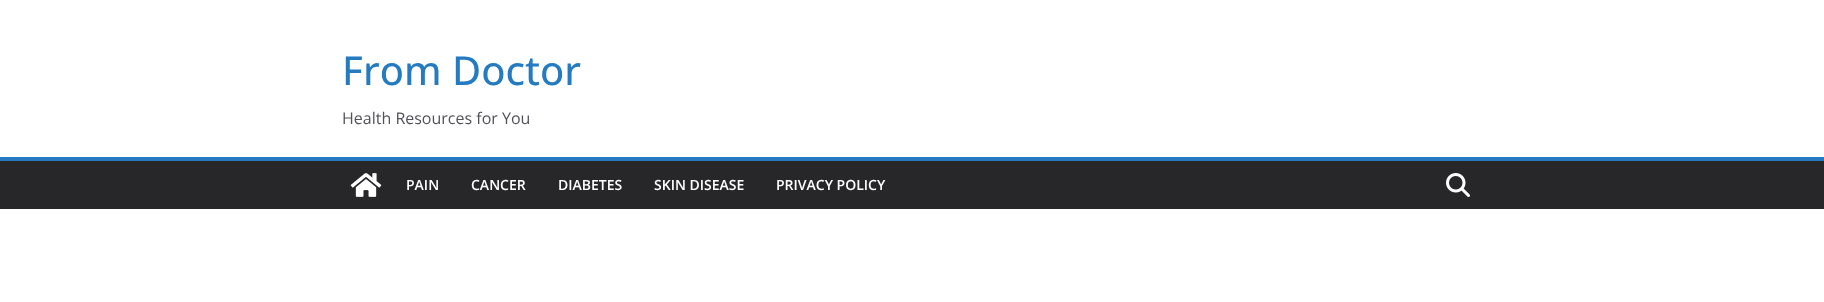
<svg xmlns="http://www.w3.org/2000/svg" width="1824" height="302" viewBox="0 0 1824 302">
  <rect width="100%" height="100%" fill="#ffffff"/>
  <text x="342" y="85" font-family="Open Sans" font-size="40" font-weight="500" fill="#257bc1">From Doctor</text>
  <text x="342" y="124" font-family="Open Sans" font-size="16" fill="#52525b">Health Resources for You</text>
  <rect x="0" y="161" width="1824" height="48" fill="#27272a"/>
  <rect x="0" y="157" width="1824" height="4" fill="#257bc1"/>
  <image x="350" y="173" width="32" height="24" href="img1.png"/>
  <text x="406" y="190" font-family="Open Sans" font-size="14" font-weight="600" fill="#ffffff">PAIN</text>
  <text x="471" y="190" font-family="Open Sans" font-size="14" font-weight="600" fill="#ffffff">CANCER</text>
  <text x="558" y="190" font-family="Open Sans" font-size="14" font-weight="600" fill="#ffffff">DIABETES</text>
  <text x="654" y="190" font-family="Open Sans" font-size="14" font-weight="600" fill="#ffffff">SKIN DISEASE</text>
  <text x="776" y="190" font-family="Open Sans" font-size="14" font-weight="600" fill="#ffffff">PRIVACY POLICY</text>
  <image x="1446" y="173" width="24" height="24" href="img2.png"/>
</svg>
